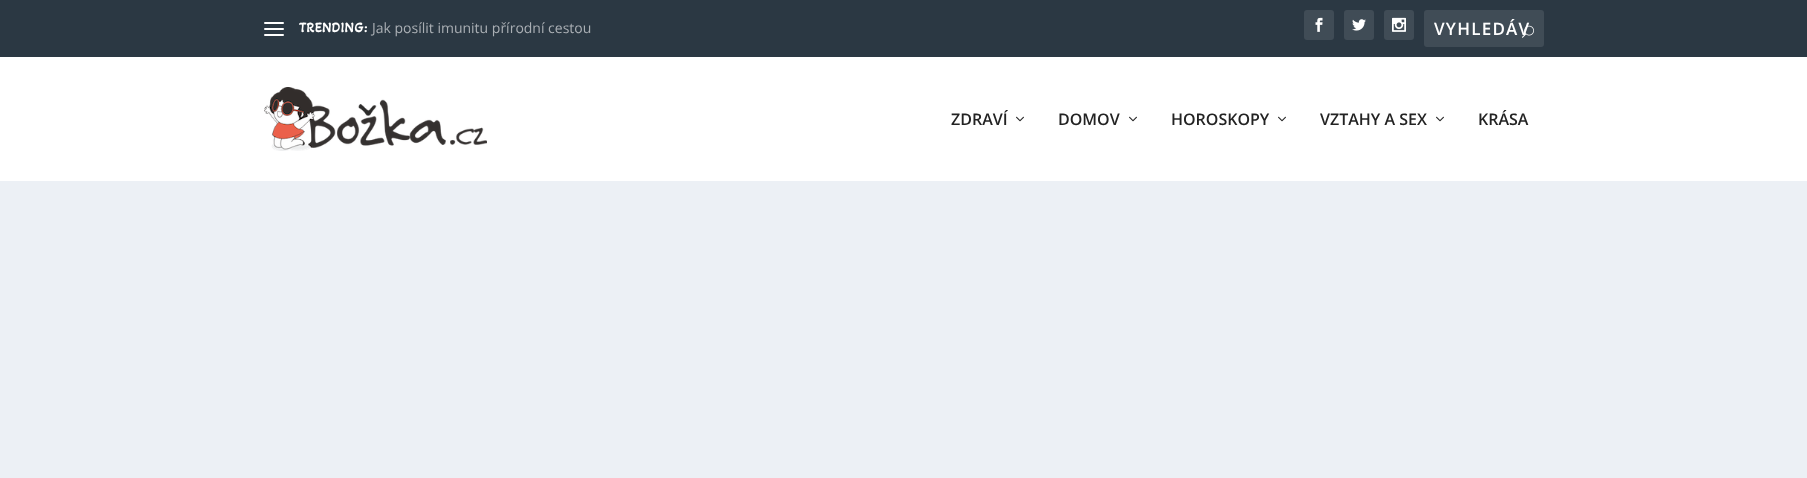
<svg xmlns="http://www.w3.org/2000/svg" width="1807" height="478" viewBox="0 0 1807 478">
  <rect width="100%" height="100%" fill="#ecf0f5"/>
  <rect x="0" y="0" width="1807" height="57" fill="#2b3843"/>
  <rect x="264" y="22" width="20" height="2" rx="1" fill="#ffffff"/>
  <rect x="264" y="28" width="20" height="2" rx="1" fill="#ffffff"/>
  <rect x="264" y="34" width="20" height="2" rx="1" fill="#ffffff"/>
  <text x="299" y="32" font-family="Akaya Kanadaka" font-size="14" font-weight="bold" letter-spacing="0.5" fill="#ffffff">TRENDING:</text>
  <text x="372" y="33" font-family="Open Sans" font-size="14" fill="#aaafb4">Jak posílit imunitu přírodní cestou</text>
  <rect x="1304" y="10" width="30" height="30" rx="3" fill="#404c56"/>
  <image x="1315" y="17" width="8" height="15" href="img1.png"/>
  <rect x="1344" y="10" width="30" height="30" rx="3" fill="#404c56"/>
  <image x="1352" y="19" width="14" height="12" href="img2.png"/>
  <rect x="1384" y="10" width="30" height="30" rx="3" fill="#404c56"/>
  <image x="1392" y="17" width="14" height="15" href="img3.png"/>
  <rect x="1424" y="10" width="120" height="37" rx="3" fill="#404c56"/>
  <text x="1434" y="35" font-family="Open Sans" font-size="17" font-weight="600" letter-spacing="1.25" fill="#ffffff">VYHLEDÁV</text>
  <image x="1522" y="25" width="12" height="13" href="img4.png"/>
  <rect x="0" y="57" width="1807" height="124" fill="#ffffff"/>
  <image x="264" y="87" width="223" height="64" href="img5.png"/>
  <text x="951" y="125" font-family="Open Sans" font-size="16" font-weight="600" fill="#232323">ZDRAVÍ</text>
  <image x="1016" y="116" width="8" height="6" href="img6.png"/>
  <text x="1058" y="125" font-family="Open Sans" font-size="16" font-weight="600" fill="#232323">DOMOV</text>
  <image x="1129" y="116" width="8" height="6" href="img6.png"/>
  <text x="1171" y="125" font-family="Open Sans" font-size="16" font-weight="600" fill="#232323">HOROSKOPY</text>
  <image x="1278" y="116" width="8" height="6" href="img6.png"/>
  <text x="1320" y="125" font-family="Open Sans" font-size="16" font-weight="600" fill="#232323">VZTAHY A SEX</text>
  <image x="1436" y="116" width="8" height="6" href="img6.png"/>
  <text x="1478" y="125" font-family="Open Sans" font-size="16" font-weight="600" fill="#232323">KRÁSA</text>
</svg>
